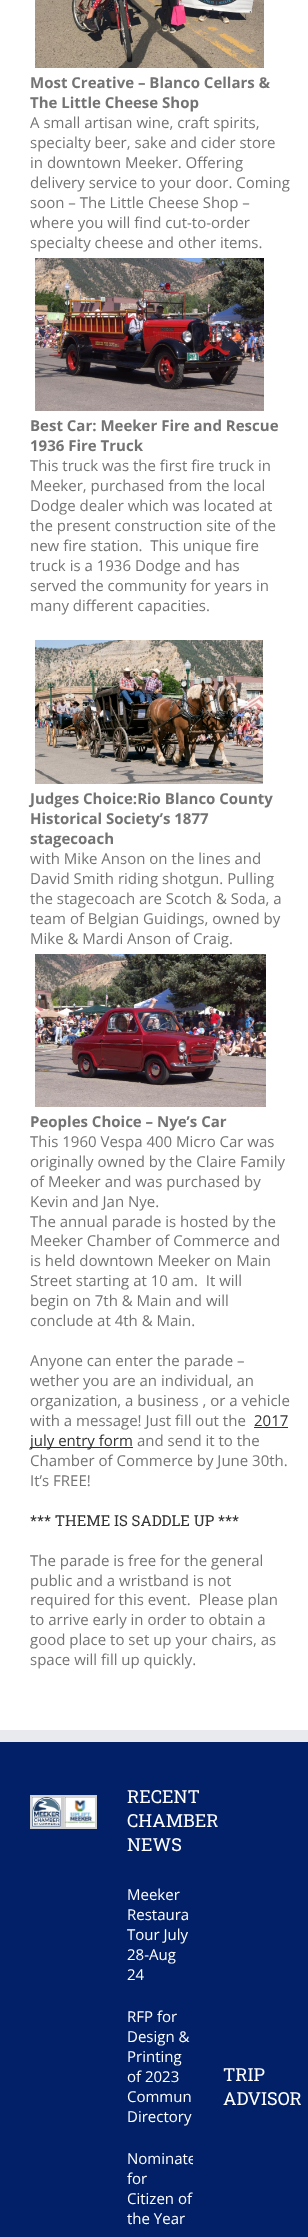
<svg xmlns="http://www.w3.org/2000/svg" width="308" height="2237" viewBox="0 0 308 2237">
  <defs>
    <clipPath id="clip1"><rect x="127" y="2149" width="66" height="80"/></clipPath>
  </defs>
  <rect width="100%" height="100%" fill="#ffffff"/>
  <image x="35" y="0" width="229" height="68" href="img1.png"/>
  <text x="30" y="88" font-family="Open Sans" font-size="15" font-weight="bold" fill="#747474">Most Creative – Blanco Cellars &amp;</text>
  <text x="30" y="108" font-family="Open Sans" font-size="15" font-weight="bold" fill="#747474">The Little Cheese Shop</text>
  <text x="30" y="128" font-family="Open Sans" font-size="15" fill="#747474">A small artisan wine, craft spirits,</text>
  <text x="30" y="148" font-family="Open Sans" font-size="15" fill="#747474">specialty beer, sake and cider store</text>
  <text x="30" y="168" font-family="Open Sans" font-size="15" fill="#747474">in downtown Meeker. Offering</text>
  <text x="30" y="188" font-family="Open Sans" font-size="15" fill="#747474">delivery service to your door. Coming</text>
  <text x="30" y="208" font-family="Open Sans" font-size="15" fill="#747474">soon – The Little Cheese Shop –</text>
  <text x="30" y="228" font-family="Open Sans" font-size="15" fill="#747474">where you will find cut-to-order</text>
  <text x="30" y="248" font-family="Open Sans" font-size="15" fill="#747474">specialty cheese and other items.</text>
  <image x="35" y="258" width="229" height="153" href="img2.png"/>
  <text x="30" y="431" font-family="Open Sans" font-size="15" font-weight="bold" fill="#747474">Best Car: Meeker Fire and Rescue</text>
  <text x="30" y="451" font-family="Open Sans" font-size="15" font-weight="bold" fill="#747474">1936 Fire Truck</text>
  <text x="30" y="471" font-family="Open Sans" font-size="15" fill="#747474">This truck was the first fire truck in</text>
  <text x="30" y="491" font-family="Open Sans" font-size="15" fill="#747474">Meeker, purchased from the local</text>
  <text x="30" y="511" font-family="Open Sans" font-size="15" fill="#747474">Dodge dealer which was located at</text>
  <text x="30" y="531" font-family="Open Sans" font-size="15" fill="#747474">the present construction site of the</text>
  <text x="30" y="551" font-family="Open Sans" font-size="15" fill="#747474" xml:space="preserve">new fire station.  This unique fire</text>
  <text x="30" y="571" font-family="Open Sans" font-size="15" fill="#747474">truck is a 1936 Dodge and has</text>
  <text x="30" y="591" font-family="Open Sans" font-size="15" fill="#747474">served the community for years in</text>
  <text x="30" y="611" font-family="Open Sans" font-size="15" fill="#747474">many different capacities.</text>
  <image x="35" y="640" width="228" height="144" href="img3.png"/>
  <text x="30" y="804" font-family="Open Sans" font-size="15" font-weight="bold" fill="#747474">Judges Choice:Rio Blanco County</text>
  <text x="30" y="824" font-family="Open Sans" font-size="15" font-weight="bold" fill="#747474">Historical Society’s 1877</text>
  <text x="30" y="844" font-family="Open Sans" font-size="15" font-weight="bold" fill="#747474">stagecoach</text>
  <text x="30" y="864" font-family="Open Sans" font-size="15" fill="#747474">with Mike Anson on the lines and</text>
  <text x="30" y="884" font-family="Open Sans" font-size="15" fill="#747474">David Smith riding shotgun. Pulling</text>
  <text x="30" y="904" font-family="Open Sans" font-size="15" fill="#747474">the stagecoach are Scotch &amp; Soda, a</text>
  <text x="30" y="924" font-family="Open Sans" font-size="15" fill="#747474">team of Belgian Guidings, owned by</text>
  <text x="30" y="944" font-family="Open Sans" font-size="15" fill="#747474">Mike &amp; Mardi Anson of Craig.</text>
  <image x="35" y="954" width="231" height="153" href="img4.png"/>
  <text x="30" y="1127" font-family="Open Sans" font-size="15" font-weight="bold" fill="#747474">Peoples Choice – Nye’s Car</text>
  <text x="30" y="1147" font-family="Open Sans" font-size="15" fill="#747474">This 1960 Vespa 400 Micro Car was</text>
  <text x="30" y="1167" font-family="Open Sans" font-size="15" fill="#747474">originally owned by the Claire Family</text>
  <text x="30" y="1187" font-family="Open Sans" font-size="15" fill="#747474">of Meeker and was purchased by</text>
  <text x="30" y="1207" font-family="Open Sans" font-size="15" fill="#747474">Kevin and Jan Nye.</text>
  <text x="30" y="1227" font-family="Open Sans" font-size="15" fill="#747474">The annual parade is hosted by the</text>
  <text x="30" y="1246" font-family="Open Sans" font-size="15" fill="#747474">Meeker Chamber of Commerce and</text>
  <text x="30" y="1266" font-family="Open Sans" font-size="15" fill="#747474">is held downtown Meeker on Main</text>
  <text x="30" y="1286" font-family="Open Sans" font-size="15" fill="#747474" xml:space="preserve">Street starting at 10 am.  It will</text>
  <text x="30" y="1306" font-family="Open Sans" font-size="15" fill="#747474">begin on 7th &amp; Main and will</text>
  <text x="30" y="1326" font-family="Open Sans" font-size="15" fill="#747474">conclude at 4th &amp; Main.</text>
  <text x="30" y="1366" font-family="Open Sans" font-size="15" fill="#747474">Anyone can enter the parade –</text>
  <text x="30" y="1386" font-family="Open Sans" font-size="15" fill="#747474">wether you are an individual, an</text>
  <text x="30" y="1406" font-family="Open Sans" font-size="15" fill="#747474">organization, a business , or a vehicle</text>
  <text x="30" y="1426" font-family="Open Sans" font-size="15" fill="#747474">with a message! Just fill out the</text>
  <text x="254" y="1426" font-family="Open Sans" font-size="15" fill="#333333">2017</text>
  <rect x="254" y="1427" width="34" height="1" fill="#333333"/>
  <rect x="30" y="1447" width="103" height="1" fill="#333333"/>
  <text x="30" y="1446" font-family="Open Sans" font-size="15" fill="#333333">july entry form</text>
  <text x="137" y="1446" font-family="Open Sans" font-size="15" fill="#747474">and send it to the</text>
  <text x="30" y="1466" font-family="Open Sans" font-size="15" fill="#747474">Chamber of Commerce by June 30th.</text>
  <text x="30" y="1486" font-family="Open Sans" font-size="15" fill="#747474">It’s FREE!</text>
  <text x="30" y="1526" font-family="Roboto Slab" font-size="15" fill="#333333">*** THEME IS SADDLE UP ***</text>
  <text x="30" y="1566" font-family="Open Sans" font-size="15" fill="#747474">The parade is free for the general</text>
  <text x="30" y="1586" font-family="Open Sans" font-size="15" fill="#747474">public and a wristband is not</text>
  <text x="30" y="1605" font-family="Open Sans" font-size="15" fill="#747474" xml:space="preserve">required for this event.  Please plan</text>
  <text x="30" y="1625" font-family="Open Sans" font-size="15" fill="#747474">to arrive early in order to obtain a</text>
  <text x="30" y="1645" font-family="Open Sans" font-size="15" fill="#747474">good place to set up your chairs, as</text>
  <text x="30" y="1665" font-family="Open Sans" font-size="15" fill="#747474">space will fill up quickly.</text>
  <rect x="0" y="1742" width="308" height="495" fill="#012068"/>
  <rect x="0" y="1730" width="308" height="12" fill="#e9eaee"/>
  <rect x="31" y="1796" width="31" height="32" fill="none" stroke="#cfcfcf" stroke-width="2"/>
  <image x="31" y="1796" width="30" height="32" href="img5.png"/>
  <rect x="64" y="1796" width="32" height="32" fill="none" stroke="#cfcfcf" stroke-width="2"/>
  <image x="64" y="1796" width="31" height="31" href="img6.png"/>
  <text x="127" y="1803" font-family="Roboto Slab" font-size="18" fill="#ffffff">RECENT</text>
  <text x="127" y="1827" font-family="Roboto Slab" font-size="18" fill="#ffffff">CHAMBER</text>
  <text x="127" y="1851" font-family="Roboto Slab" font-size="18" fill="#ffffff">NEWS</text>
  <text x="127" y="1900" font-family="Open Sans" font-size="15" fill="#ffffff">Meeker</text>
  <text x="127" y="1920" font-family="Open Sans" font-size="15" fill="#ffffff">Restaura</text>
  <text x="127" y="1940" font-family="Open Sans" font-size="15" fill="#ffffff">Tour July</text>
  <text x="127" y="1960" font-family="Open Sans" font-size="15" fill="#ffffff">28-Aug</text>
  <text x="127" y="1980" font-family="Open Sans" font-size="15" fill="#ffffff">24</text>
  <text x="127" y="2022" font-family="Open Sans" font-size="15" fill="#ffffff">RFP for</text>
  <text x="127" y="2042" font-family="Open Sans" font-size="15" fill="#ffffff">Design &amp;</text>
  <text x="127" y="2062" font-family="Open Sans" font-size="15" fill="#ffffff">Printing</text>
  <text x="127" y="2082" font-family="Open Sans" font-size="15" fill="#ffffff">of 2023</text>
  <text x="127" y="2102" font-family="Open Sans" font-size="15" fill="#ffffff">Commun</text>
  <text x="127" y="2122" font-family="Open Sans" font-size="15" fill="#ffffff">Directory</text>
  <g clip-path="url(#clip1)">
    <text x="127" y="2164" font-family="Open Sans" font-size="15" fill="#ffffff">Nominate</text>
  </g>
  <text x="127" y="2184" font-family="Open Sans" font-size="15" fill="#ffffff">for</text>
  <text x="127" y="2204" font-family="Open Sans" font-size="15" fill="#ffffff">Citizen of</text>
  <text x="127" y="2224" font-family="Open Sans" font-size="15" fill="#ffffff">the Year</text>
  <text x="223" y="2081" font-family="Roboto Slab" font-size="18" fill="#ffffff">TRIP</text>
  <text x="223" y="2105" font-family="Roboto Slab" font-size="18" fill="#ffffff">ADVISOR</text>
</svg>
